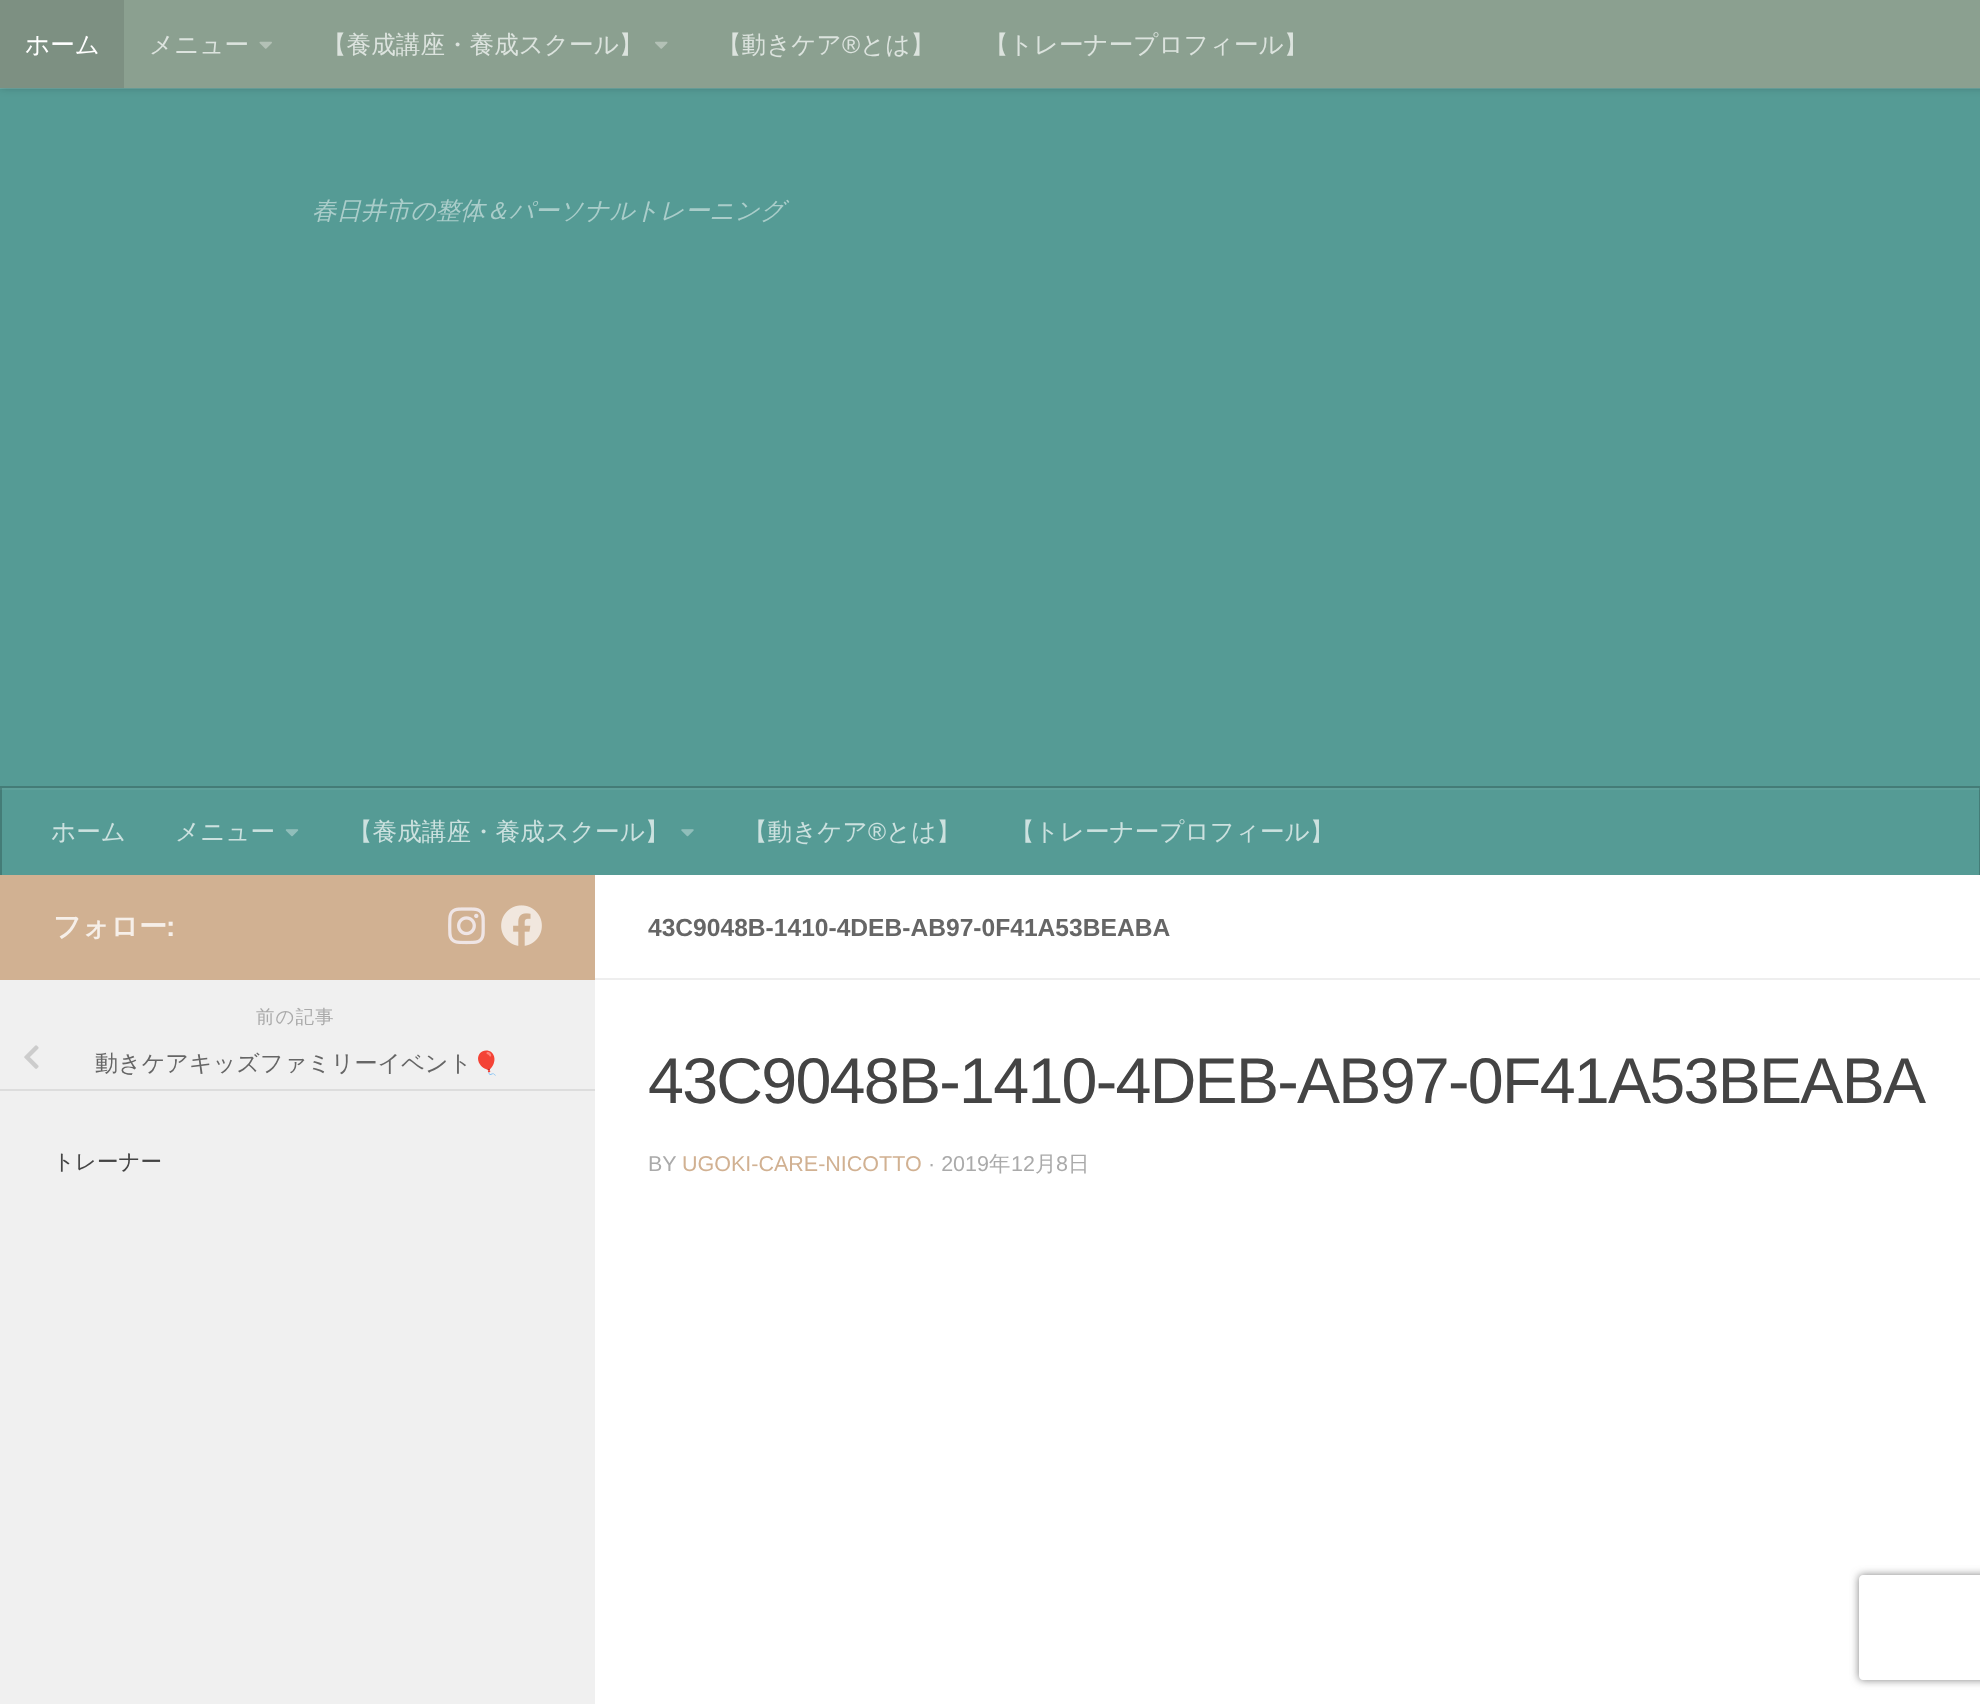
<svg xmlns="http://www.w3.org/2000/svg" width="1980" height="1704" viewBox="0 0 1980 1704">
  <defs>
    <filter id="blur1" x="-50%" y="-200%" width="200%" height="500%"><feGaussianBlur stdDeviation="4.5"/></filter>
    <clipPath id="clip1"><path d="M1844 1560H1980V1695H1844ZM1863 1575H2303C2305 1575 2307 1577 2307 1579V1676C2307 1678 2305 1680 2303 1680H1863C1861 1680 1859 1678 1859 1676V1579C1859 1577 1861 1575 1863 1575Z" clip-rule="evenodd"/></clipPath>
  </defs>
  <rect width="100%" height="100%" fill="#559b95"/>
  <rect x="0" y="788" width="1980" height="2" fill="#5ea09a"/>
  <rect x="0" y="88" width="1980" height="1" fill="#6faaa5"/>
  <rect x="0" y="0" width="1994" height="88" fill="#000000" fill-opacity="0.2" filter="url(#blur1)"/>
  <rect x="124" y="0" width="1856" height="88" fill="#8ba090"/>
  <rect x="0" y="0" width="124" height="88" fill="#7d9082"/>
  <text x="25" y="53" font-family="WenQuanYi Zen Hei" font-size="24.6" font-weight="500" fill="#ffffff">ホーム</text>
  <text x="149" y="53" font-family="WenQuanYi Zen Hei" font-size="24.6" font-weight="500" fill="#dce3de">メニュー</text>
  <image x="259" y="41" width="13" height="8" href="img1.png"/>
  <text x="322" y="53" font-family="WenQuanYi Zen Hei" font-size="24.6" font-weight="500" fill="#dce3de">【養成講座・養成スクール】</text>
  <image x="655" y="41" width="13" height="8" href="img2.png"/>
  <text x="717" y="53" font-family="WenQuanYi Zen Hei" font-size="24.6" font-weight="500" fill="#dce3de">【動きケア</text>
  <text x="842" y="53" font-family="Liberation Sans" font-size="24.6" fill="#dce3de">®</text>
  <text x="860" y="53" font-family="WenQuanYi Zen Hei" font-size="24.6" font-weight="500" fill="#dce3de">とは】</text>
  <text x="984" y="53" font-family="WenQuanYi Zen Hei" font-size="24.6" font-weight="500" fill="#dce3de">【トレーナープロフィール】</text>
  <text x="312" y="219" font-family="WenQuanYi Zen Hei" font-size="24.6" font-weight="500" font-style="italic" fill="#aacdca">春日井市の整体＆パーソナルトレーニング</text>
  <rect x="0" y="786" width="1980" height="2" fill="#447c77"/>
  <rect x="1979" y="788" width="1" height="87" fill="#447c77"/>
  <rect x="1979" y="788" width="1" height="2" fill="#4d837e"/>
  <rect x="0" y="788" width="2" height="87" fill="#447c77"/>
  <rect x="0" y="788" width="2" height="2" fill="#4d837e"/>
  <text x="51" y="840" font-family="WenQuanYi Zen Hei" font-size="24.6" font-weight="500" fill="#cce1df">ホーム</text>
  <text x="175" y="840" font-family="WenQuanYi Zen Hei" font-size="24.6" font-weight="500" fill="#cce1df">メニュー</text>
  <image x="285" y="829" width="14" height="8" href="img3.png"/>
  <text x="348" y="840" font-family="WenQuanYi Zen Hei" font-size="24.6" font-weight="500" fill="#cce1df">【養成講座・養成スクール】</text>
  <image x="681" y="829" width="13" height="8" href="img4.png"/>
  <text x="743" y="840" font-family="WenQuanYi Zen Hei" font-size="24.6" font-weight="500" fill="#cce1df">【動きケア</text>
  <text x="868" y="840" font-family="Liberation Sans" font-size="24.6" fill="#cce1df">®</text>
  <text x="886" y="840" font-family="WenQuanYi Zen Hei" font-size="24.6" font-weight="500" fill="#cce1df">とは】</text>
  <text x="1010" y="840" font-family="WenQuanYi Zen Hei" font-size="24.6" font-weight="500" fill="#cce1df">【トレーナープロフィール】</text>
  <rect x="595" y="875" width="1385" height="829" fill="#ffffff"/>
  <rect x="0" y="875" width="595" height="105" fill="#d1b192"/>
  <text x="53" y="936" font-family="WenQuanYi Zen Hei" font-size="28" font-weight="bold" fill="#f6efe9">フォロー</text>
  <text x="166" y="936" font-family="Liberation Sans" font-size="28" font-weight="bold" fill="#f6efe9">:</text>
  <image x="448" y="907" width="37" height="38" href="img5.png"/>
  <image x="501" y="905" width="41" height="41" href="img6.png"/>
  <rect x="0" y="980" width="595" height="724" fill="#f0f0f0"/>
  <text x="256" y="1023" font-family="WenQuanYi Zen Hei" font-size="18.5" font-weight="500" letter-spacing="1" fill="#aaaaaa">前の記事</text>
  <rect x="0" y="1089" width="595" height="2" fill="#dddddd"/>
  <image x="24" y="1045" width="15" height="24" href="img7.png"/>
  <text x="95" y="1071" font-family="WenQuanYi Zen Hei" font-size="23.1" font-weight="500" fill="#666666">動きケアキッズファミリーイベント</text>
  <text x="472" y="1071" font-family="Noto Color Emoji" font-size="23.1" fill="#666666">🎈</text>
  <text x="53" y="1169" font-family="WenQuanYi Zen Hei" font-size="21.5" font-weight="500" fill="#444444">トレーナー</text>
  <rect x="595" y="978" width="1385" height="2" fill="#eeeeee"/>
  <text x="648" y="936" font-family="Liberation Sans" font-size="24.6" font-weight="bold" fill="#666666">43C9048B-1410-4DEB-AB97-0F41A53BEABA</text>
  <text x="648" y="1103" font-family="Liberation Sans" font-size="64.6" letter-spacing="-1.75" fill="#444444">43C9048B-1410-4DEB-AB97-0F41A53BEABA</text>
  <text x="648" y="1171" font-family="Liberation Sans" font-size="21.5" fill="#aaaaaa">BY</text>
  <text x="682" y="1171" font-family="Liberation Sans" font-size="21.5" fill="#d1b192">UGOKI-CARE-NICOTTO</text>
  <text x="928" y="1171" font-family="Liberation Sans" font-size="21.5" fill="#aaaaaa">· 2019</text>
  <text x="989" y="1171" font-family="WenQuanYi Zen Hei" font-size="21.5" font-weight="500" fill="#aaaaaa">年</text>
  <text x="1011" y="1171" font-family="Liberation Sans" font-size="21.5" fill="#aaaaaa">12</text>
  <text x="1035" y="1171" font-family="WenQuanYi Zen Hei" font-size="21.5" font-weight="500" fill="#aaaaaa">月</text>
  <text x="1056" y="1171" font-family="Liberation Sans" font-size="21.5" fill="#aaaaaa">8</text>
  <text x="1068" y="1171" font-family="WenQuanYi Zen Hei" font-size="21.5" font-weight="500" fill="#aaaaaa">日</text>
  <g clip-path="url(#clip1)">
    <rect x="1859" y="1575" width="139" height="105" rx="4" fill="#808080" filter="url(#blur1)"/>
  </g>
</svg>
